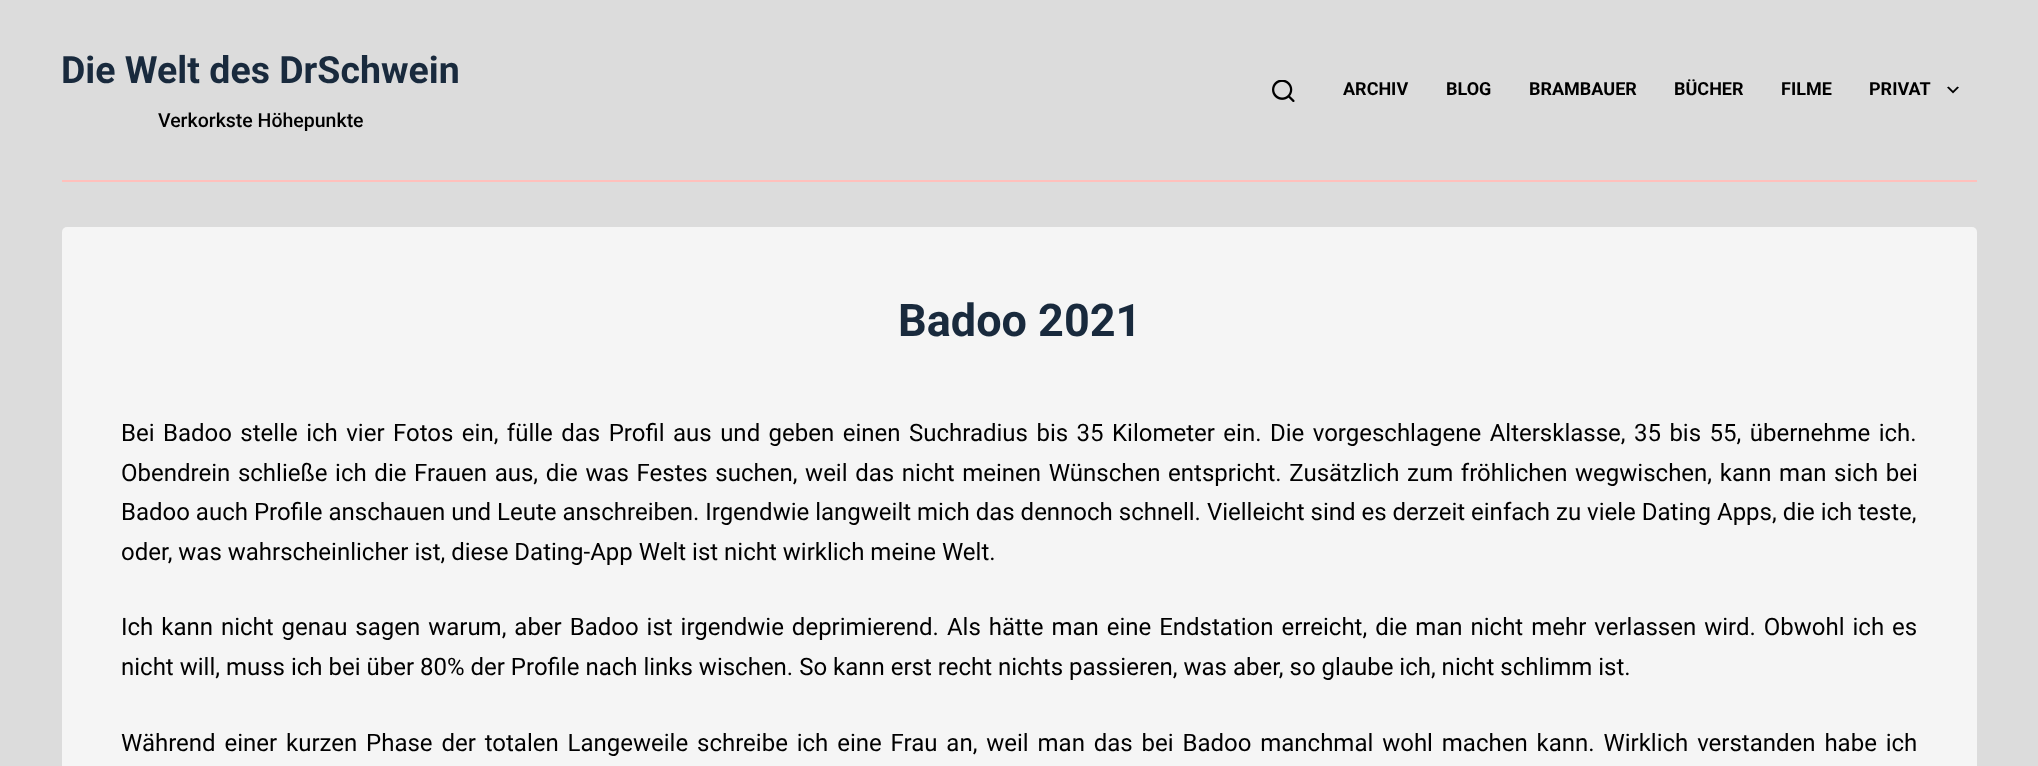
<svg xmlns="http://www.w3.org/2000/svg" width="2038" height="766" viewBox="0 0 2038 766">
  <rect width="100%" height="100%" fill="#dcdcdc"/>
  <rect x="62" y="180" width="1915" height="2" fill="#ffc0bc"/>
  <text x="61" y="83" font-family="Roboto" font-size="37.5" font-weight="bold" fill="#192a3d">Die Welt des DrSchwein</text>
  <text x="158" y="127" font-family="Roboto" font-size="19.5" font-weight="500" fill="#000000">Verkorkste Höhepunkte</text>
  <image x="1272" y="80" width="23" height="22" href="img1.png"/>
  <text x="1343" y="95" font-family="Roboto" font-size="18" font-weight="bold" fill="#000000">ARCHIV</text>
  <text x="1446" y="95" font-family="Roboto" font-size="18" font-weight="bold" fill="#000000">BLOG</text>
  <text x="1529" y="95" font-family="Roboto" font-size="18" font-weight="bold" fill="#000000">BRAMBAUER</text>
  <text x="1674" y="95" font-family="Roboto" font-size="18" font-weight="bold" fill="#000000">BÜCHER</text>
  <text x="1781" y="95" font-family="Roboto" font-size="18" font-weight="bold" fill="#000000">FILME</text>
  <text x="1869" y="95" font-family="Roboto" font-size="18" font-weight="bold" fill="#000000">PRIVAT</text>
  <image x="1947" y="86" width="12" height="8" href="img2.png"/>
  <rect x="62" y="227" width="1915" height="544" rx="5" fill="#f5f5f5"/>
  <text x="898" y="336" font-family="Roboto" font-size="45" font-weight="bold" fill="#192a3d">Badoo 2021</text>
  <text x="121" y="441" word-spacing="2.5" font-family="Roboto" font-size="24" fill="#000000">Bei Badoo stelle ich vier Fotos ein, fülle das Profil aus und geben einen Suchradius bis 35 Kilometer ein. Die vorgeschlagene Altersklasse, 35 bis 55, übernehme ich.</text>
  <text x="121" y="481" word-spacing="1.7" font-family="Roboto" font-size="24" fill="#000000">Obendrein schließe ich die Frauen aus, die was Festes suchen, weil das nicht meinen Wünschen entspricht. Zusätzlich zum fröhlichen wegwischen, kann man sich bei</text>
  <text x="121" y="520" font-family="Roboto" font-size="24" fill="#000000">Badoo auch Profile anschauen und Leute anschreiben. Irgendwie langweilt mich das dennoch schnell. Vielleicht sind es derzeit einfach zu viele Dating Apps, die ich teste,</text>
  <text x="121" y="560" font-family="Roboto" font-size="24" fill="#000000">oder, was wahrscheinlicher ist, diese Dating-App Welt ist nicht wirklich meine Welt.</text>
  <text x="121" y="635" word-spacing="2" font-family="Roboto" font-size="24" fill="#000000">Ich kann nicht genau sagen warum, aber Badoo ist irgendwie deprimierend. Als hätte man eine Endstation erreicht, die man nicht mehr verlassen wird. Obwohl ich es</text>
  <text x="121" y="675" font-family="Roboto" font-size="24" fill="#000000">nicht will, muss ich bei über 80% der Profile nach links wischen. So kann erst recht nichts passieren, was aber, so glaube ich, nicht schlimm ist.</text>
  <text x="121" y="751" word-spacing="2.9" font-family="Roboto" font-size="24" fill="#000000">Während einer kurzen Phase der totalen Langeweile schreibe ich eine Frau an, weil man das bei Badoo manchmal wohl machen kann. Wirklich verstanden habe ich</text>
</svg>
